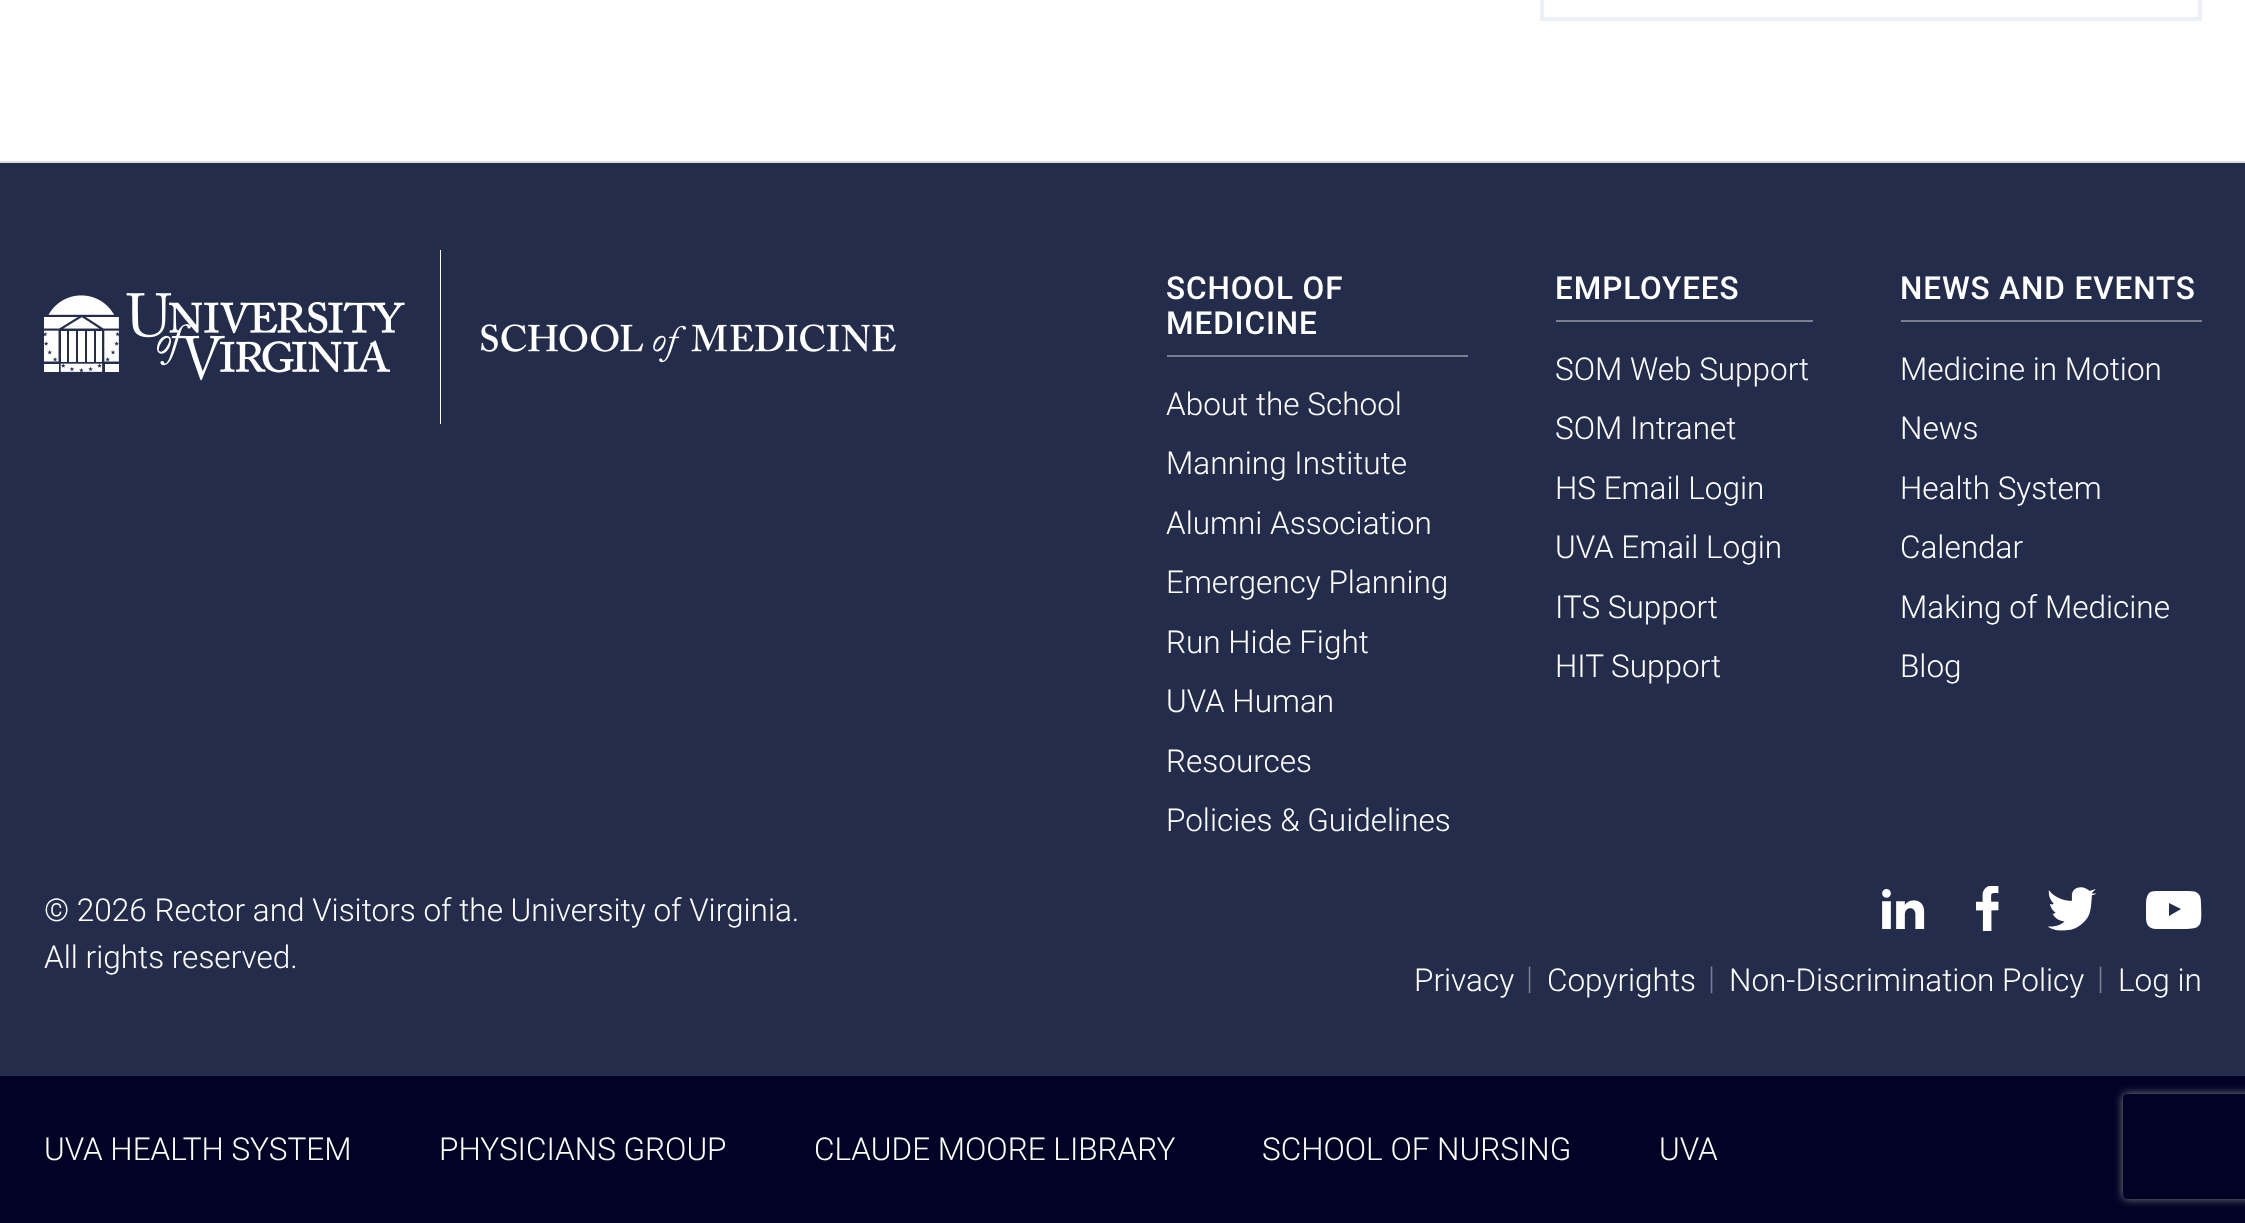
<svg xmlns="http://www.w3.org/2000/svg" width="2245" height="1223" viewBox="0 0 2245 1223">
  <defs>
    <clipPath id="clip1"><rect x="2146" y="891" width="56" height="38"/></clipPath>
    <clipPath id="clip2"><path d="M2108 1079H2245V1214H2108ZM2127 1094H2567C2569 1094 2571 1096 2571 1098V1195C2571 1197 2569 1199 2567 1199H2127C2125 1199 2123 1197 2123 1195V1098C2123 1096 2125 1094 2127 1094Z" clip-rule="evenodd"/></clipPath>
    <filter id="blur1" x="-50%" y="-200%" width="200%" height="500%"><feGaussianBlur stdDeviation="4.5"/></filter>
  </defs>
  <rect width="100%" height="100%" fill="#ffffff"/>
  <rect x="1542" y="-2" width="658" height="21" fill="none" stroke="#edf0f6" stroke-width="4"/>
  <rect x="0" y="161" width="2245" height="2" fill="#dddddd"/>
  <rect x="0" y="163" width="2245" height="913" fill="#232d4b"/>
  <image x="44" y="250" width="852" height="174" href="img1.png"/>
  <rect x="1167" y="355" width="301" height="2" fill="#7a7f90"/>
  <text x="1166" y="299" font-family="Roboto" font-size="31.5" font-weight="500" letter-spacing="0.9" fill="#ffffff">SCHOOL OF</text>
  <text x="1166" y="334" font-family="Roboto" font-size="31.5" font-weight="500" letter-spacing="0.9" fill="#ffffff">MEDICINE</text>
  <text x="1166" y="415" font-family="Roboto" font-size="31.5" font-weight="300" fill="#ffffff">About the School</text>
  <text x="1166" y="474" font-family="Roboto" font-size="31.5" font-weight="300" fill="#ffffff">Manning Institute</text>
  <text x="1166" y="534" font-family="Roboto" font-size="31.5" font-weight="300" fill="#ffffff">Alumni Association</text>
  <text x="1166" y="593" font-family="Roboto" font-size="31.5" font-weight="300" fill="#ffffff">Emergency Planning</text>
  <text x="1166" y="653" font-family="Roboto" font-size="31.5" font-weight="300" fill="#ffffff">Run Hide Fight</text>
  <text x="1166" y="712" font-family="Roboto" font-size="31.5" font-weight="300" fill="#ffffff">UVA Human</text>
  <text x="1166" y="772" font-family="Roboto" font-size="31.5" font-weight="300" fill="#ffffff">Resources</text>
  <text x="1166" y="831" font-family="Roboto" font-size="31.5" font-weight="300" fill="#ffffff">Policies &amp; Guidelines</text>
  <rect x="1556" y="320" width="257" height="2" fill="#7a7f90"/>
  <text x="1555" y="299" font-family="Roboto" font-size="31.5" font-weight="500" letter-spacing="0.9" fill="#ffffff">EMPLOYEES</text>
  <text x="1555" y="380" font-family="Roboto" font-size="31.5" font-weight="300" fill="#ffffff">SOM Web Support</text>
  <text x="1555" y="439" font-family="Roboto" font-size="31.5" font-weight="300" fill="#ffffff">SOM Intranet</text>
  <text x="1555" y="499" font-family="Roboto" font-size="31.5" font-weight="300" fill="#ffffff">HS Email Login</text>
  <text x="1555" y="558" font-family="Roboto" font-size="31.5" font-weight="300" fill="#ffffff">UVA Email Login</text>
  <text x="1555" y="618" font-family="Roboto" font-size="31.5" font-weight="300" fill="#ffffff">ITS Support</text>
  <text x="1555" y="677" font-family="Roboto" font-size="31.5" font-weight="300" fill="#ffffff">HIT Support</text>
  <rect x="1901" y="320" width="301" height="2" fill="#7a7f90"/>
  <text x="1900" y="299" font-family="Roboto" font-size="31.5" font-weight="500" letter-spacing="0.9" fill="#ffffff">NEWS AND EVENTS</text>
  <text x="1900" y="380" font-family="Roboto" font-size="31.5" font-weight="300" fill="#ffffff">Medicine in Motion</text>
  <text x="1900" y="439" font-family="Roboto" font-size="31.5" font-weight="300" fill="#ffffff">News</text>
  <text x="1900" y="499" font-family="Roboto" font-size="31.5" font-weight="300" fill="#ffffff">Health System</text>
  <text x="1900" y="558" font-family="Roboto" font-size="31.5" font-weight="300" fill="#ffffff">Calendar</text>
  <text x="1900" y="618" font-family="Roboto" font-size="31.5" font-weight="300" fill="#ffffff">Making of Medicine</text>
  <text x="1900" y="677" font-family="Roboto" font-size="31.5" font-weight="300" fill="#ffffff">Blog</text>
  <text x="44" y="921" font-family="Roboto" font-size="31.5" font-weight="300" fill="#ffffff">© 2026 Rector and Visitors of the University of Virginia.</text>
  <text x="44" y="968" font-family="Roboto" font-size="31.5" font-weight="300" fill="#ffffff">All rights reserved.</text>
  <image x="1882" y="889" width="43" height="40" href="img2.png"/>
  <image x="1976" y="886" width="23" height="45" href="img3.png"/>
  <image x="2048" y="887" width="49" height="44" href="img4.png"/>
  <g clip-path="url(#clip1)">
    <path d="M2173 891H2189C2198 891 2201 894 2201 903C2202 929 2202 929 2177 929H2156C2147 928 2145 925 2146 906C2146 895 2148 891 2156 891H2174ZM2169 903V916L2181 909Z" fill="#ffffff"/>
  </g>
  <text x="1414" y="991" font-family="Roboto" font-size="31.5" font-weight="300" fill="#ffffff">Privacy</text>
  <text x="1526" y="989" font-family="Roboto" font-size="31.5" font-weight="300" fill="#7a7f90">|</text>
  <text x="1547" y="991" font-family="Roboto" font-size="31.5" font-weight="300" fill="#ffffff">Copyrights</text>
  <text x="1708" y="989" font-family="Roboto" font-size="31.5" font-weight="300" fill="#7a7f90">|</text>
  <text x="1729" y="991" font-family="Roboto" font-size="31.5" font-weight="300" fill="#ffffff">Non-Discrimination Policy</text>
  <text x="2097" y="989" font-family="Roboto" font-size="31.5" font-weight="300" fill="#7a7f90">|</text>
  <text x="2118" y="991" font-family="Roboto" font-size="31.5" font-weight="300" fill="#ffffff">Log in</text>
  <rect x="0" y="1076" width="2245" height="147" fill="#000326"/>
  <text x="44" y="1160" font-family="Roboto" font-size="31.5" font-weight="300" fill="#ffffff">UVA HEALTH SYSTEM</text>
  <text x="439" y="1160" font-family="Roboto" font-size="31.5" font-weight="300" fill="#ffffff">PHYSICIANS GROUP</text>
  <text x="814" y="1160" font-family="Roboto" font-size="31.5" font-weight="300" fill="#ffffff">CLAUDE MOORE LIBRARY</text>
  <text x="1262" y="1160" font-family="Roboto" font-size="31.5" font-weight="300" fill="#ffffff">SCHOOL OF NURSING</text>
  <text x="1659" y="1160" font-family="Roboto" font-size="31.5" font-weight="300" fill="#ffffff">UVA</text>
  <g clip-path="url(#clip2)">
    <rect x="2123" y="1094" width="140" height="105" rx="4" fill="#808080" filter="url(#blur1)"/>
  </g>
</svg>
